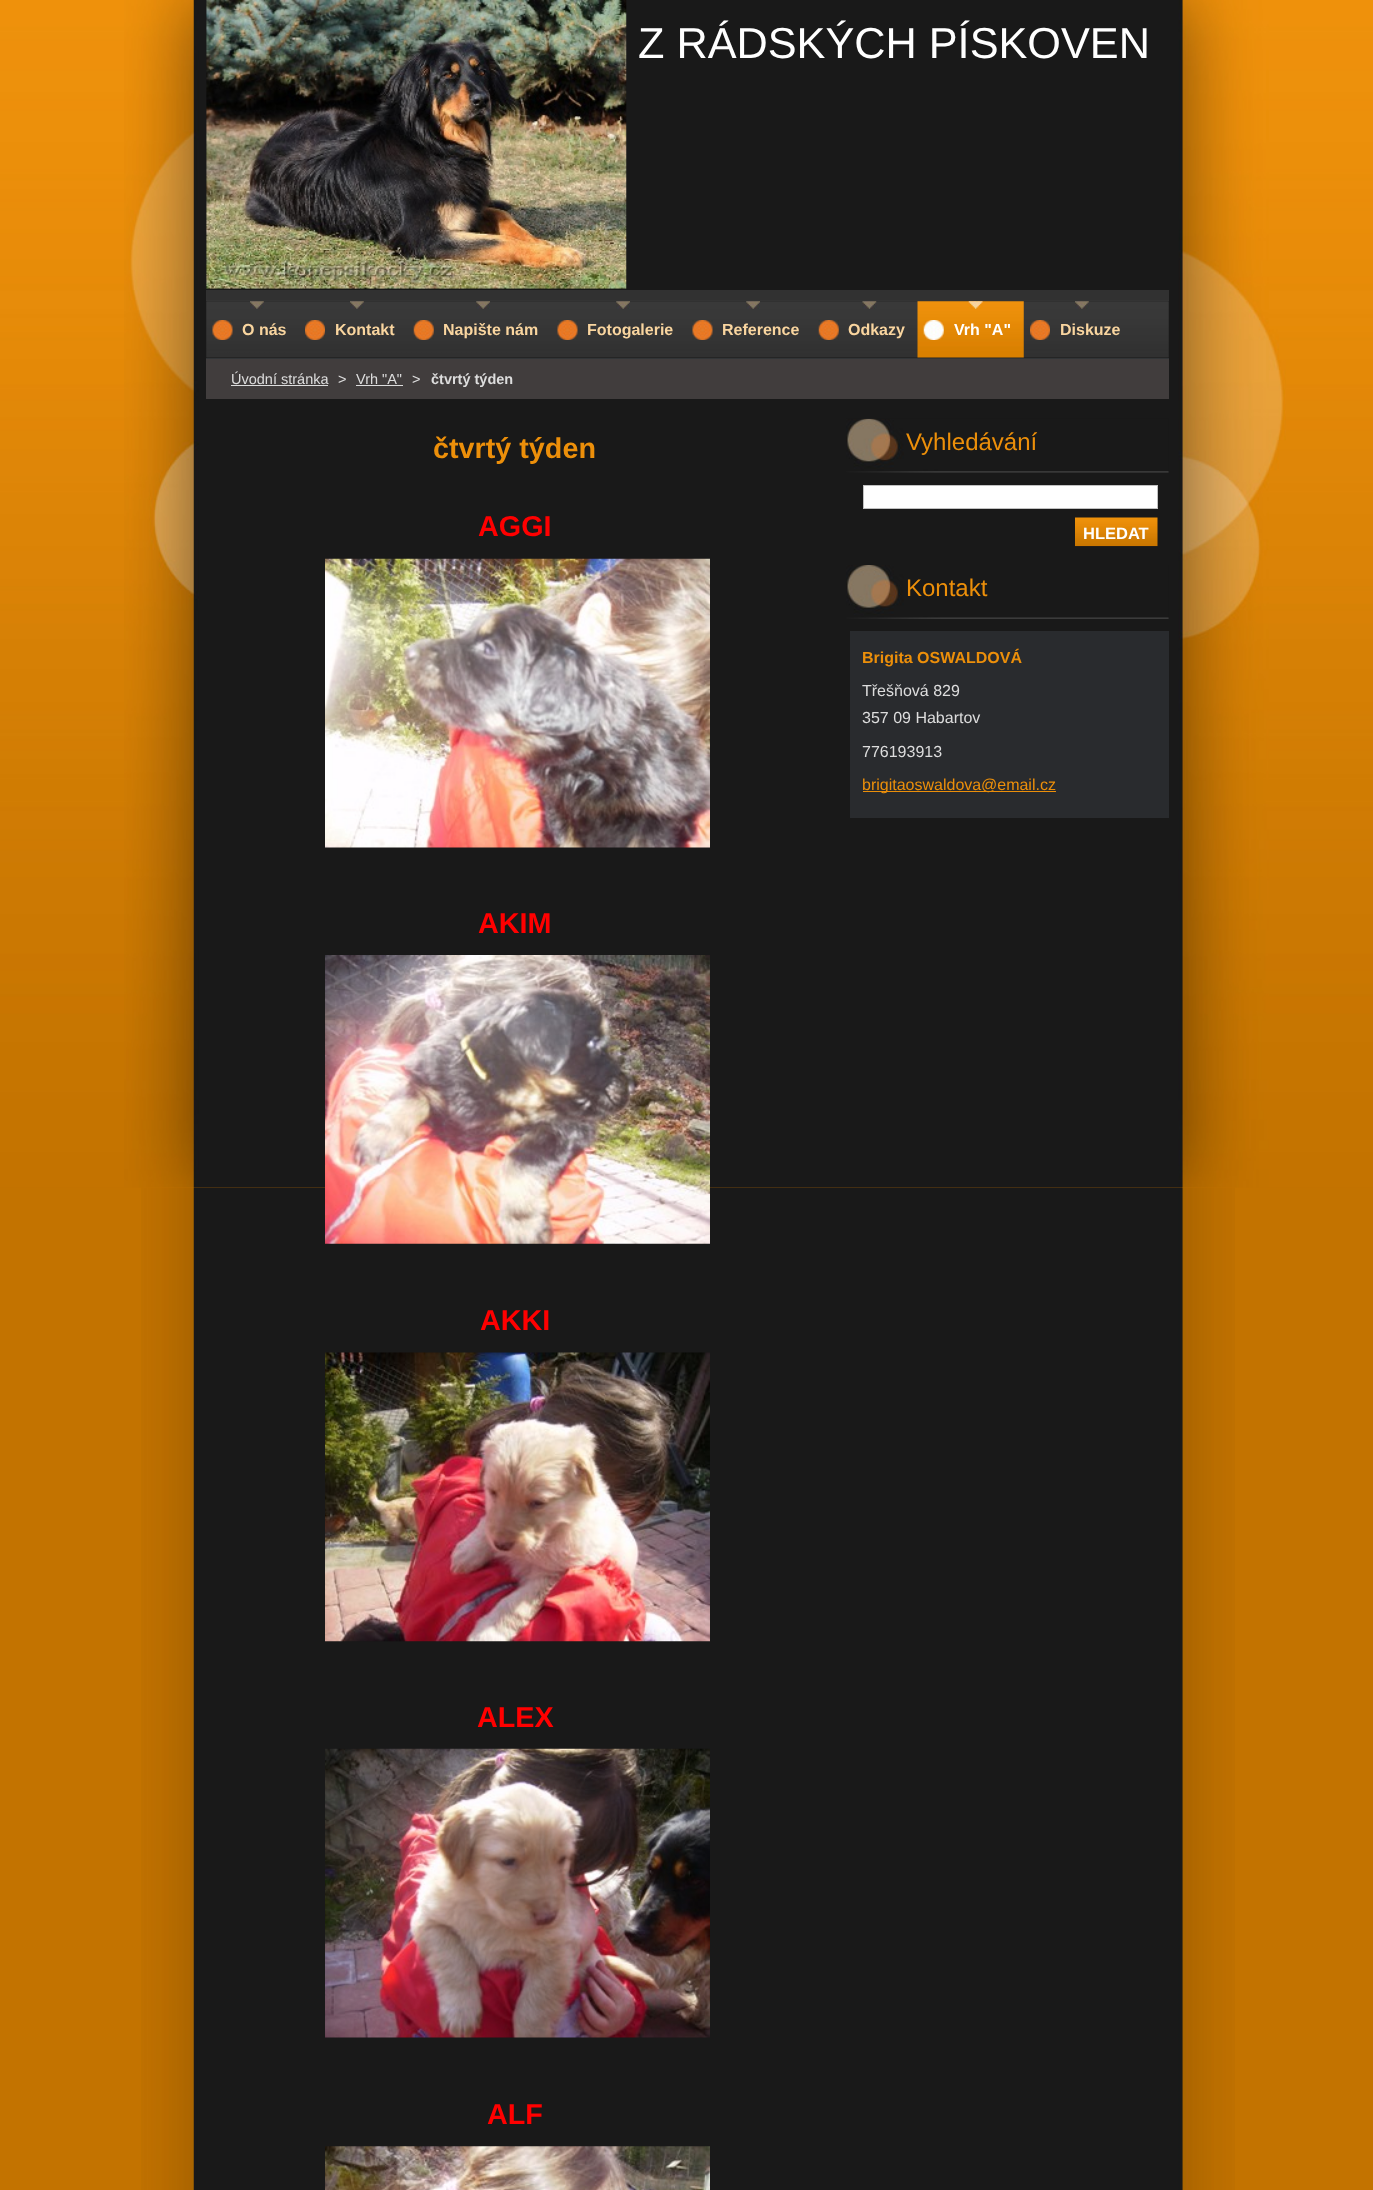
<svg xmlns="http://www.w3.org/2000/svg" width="1373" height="2190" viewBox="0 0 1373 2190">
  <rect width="100%" height="100%" fill="#c37300"/>
  <image x="141" y="1187" width="1094" height="1003" href="img1.png"/>
  <image x="0" y="0" width="1373" height="1188" href="img2.png"/>
  <image x="124" y="0" width="1162" height="1188" href="img3.png"/>
  <rect x="206" y="290" width="963" height="10" fill="#313131"/>
  <image x="206" y="0" width="421" height="289" href="img4.png"/>
  <text x="638" y="58" font-family="Liberation Sans" font-size="43.25" fill="#ffffff">Z RÁDSKÝCH PÍSKOVEN</text>
  <image x="206" y="301" width="963" height="57" href="img5.png"/>
  <rect x="206" y="300" width="963" height="1" fill="#343434"/>
  <rect x="206" y="358" width="963" height="1" fill="#323537"/>
  <image x="212" y="320" width="21" height="20" href="img6.png"/>
  <image x="250" y="301" width="14" height="8" href="img7.png"/>
  <text x="242" y="335" font-family="Liberation Sans" font-size="16" font-weight="bold" fill="#f9d59f">O nás</text>
  <image x="305" y="320" width="20" height="20" href="img8.png"/>
  <image x="350" y="301" width="14" height="8" href="img7.png"/>
  <text x="335" y="335" font-family="Liberation Sans" font-size="16" font-weight="bold" fill="#f9d59f">Kontakt</text>
  <image x="413" y="320" width="21" height="20" href="img9.png"/>
  <image x="476" y="301" width="14" height="8" href="img10.png"/>
  <text x="443" y="335" font-family="Liberation Sans" font-size="16" font-weight="bold" fill="#f9d59f">Napište nám</text>
  <image x="557" y="320" width="21" height="20" href="img11.png"/>
  <image x="616" y="301" width="14" height="8" href="img10.png"/>
  <text x="587" y="335" font-family="Liberation Sans" font-size="16" font-weight="bold" fill="#f9d59f">Fotogalerie</text>
  <image x="692" y="320" width="21" height="20" href="img6.png"/>
  <image x="746" y="301" width="14" height="8" href="img10.png"/>
  <text x="722" y="335" font-family="Liberation Sans" font-size="16" font-weight="bold" fill="#f9d59f">Reference</text>
  <image x="818" y="320" width="21" height="20" href="img12.png"/>
  <image x="862" y="301" width="15" height="8" href="img13.png"/>
  <text x="848" y="335" font-family="Liberation Sans" font-size="16" font-weight="bold" fill="#f9d59f">Odkazy</text>
  <image x="917" y="301" width="107" height="57" href="img14.png"/>
  <image x="923" y="320" width="21" height="20" href="img15.png"/>
  <image x="968" y="301" width="15" height="8" href="img16.png"/>
  <text x="954" y="335" font-family="Liberation Sans" font-size="16" font-weight="bold" fill="#ffffff">Vrh "A"</text>
  <image x="1030" y="320" width="20" height="20" href="img8.png"/>
  <image x="1075" y="301" width="14" height="8" href="img7.png"/>
  <text x="1060" y="335" font-family="Liberation Sans" font-size="16" font-weight="bold" fill="#f9d59f">Diskuze</text>
  <rect x="206" y="359" width="963" height="40" fill="#413d3d"/>
  <text x="231" y="384" font-family="Liberation Sans" font-size="14.5" fill="#dddddd">Úvodní stránka</text>
  <rect x="231" y="385" width="97" height="1" fill="#dddddd"/>
  <text x="338" y="384" font-family="Liberation Sans" font-size="14.5" fill="#dddddd">&gt;</text>
  <text x="356" y="384" font-family="Liberation Sans" font-size="14.5" fill="#dddddd">Vrh "A"</text>
  <rect x="356" y="385" width="47" height="1" fill="#dddddd"/>
  <text x="412" y="384" font-family="Liberation Sans" font-size="14.5" fill="#dddddd">&gt;</text>
  <text x="431" y="384" font-family="Liberation Sans" font-size="14.5" font-weight="bold" fill="#dddddd">čtvrtý týden</text>
  <text x="433" y="458" font-family="Liberation Sans" font-size="28.75" font-weight="bold" fill="#ec8f0a">čtvrtý týden</text>
  <text x="478" y="536" font-family="Liberation Sans" font-size="28.75" font-weight="bold" fill="#ff0000">AGGI</text>
  <image x="325" y="558" width="385" height="290" href="img17.png"/>
  <text x="478" y="933" font-family="Liberation Sans" font-size="28.75" font-weight="bold" fill="#ff0000">AKIM</text>
  <image x="325" y="955" width="385" height="289" href="img18.png"/>
  <text x="480" y="1330" font-family="Liberation Sans" font-size="28.75" font-weight="bold" fill="#ff0000">AKKI</text>
  <image x="325" y="1352" width="385" height="290" href="img19.png"/>
  <text x="477" y="1727" font-family="Liberation Sans" font-size="28.75" font-weight="bold" fill="#ff0000">ALEX</text>
  <image x="325" y="1748" width="385" height="290" href="img20.png"/>
  <text x="487" y="2124" font-family="Liberation Sans" font-size="28.75" font-weight="bold" fill="#ff0000">ALF</text>
  <image x="325" y="2146" width="385" height="44" href="img21.png"/>
  <image x="846" y="418" width="323" height="55" href="img22.png"/>
  <text x="906" y="450" font-family="Liberation Sans" font-size="24" fill="#ec8f0a">Vyhledávání</text>
  <rect x="863.5" y="485.5" width="294" height="23" fill="#ffffff" stroke="#c1c1c1"/>
  <image x="1075" y="517" width="83" height="30" href="img23.png"/>
  <text x="1083" y="539" font-family="Liberation Sans" font-size="16.5" font-weight="bold" fill="#ffffff">HLEDAT</text>
  <image x="846" y="565" width="323" height="54" href="img24.png"/>
  <text x="906" y="596" font-family="Liberation Sans" font-size="24" fill="#ec8f0a">Kontakt</text>
  <rect x="850" y="631" width="319" height="187" fill="#292b2e"/>
  <text x="862" y="663" font-family="Liberation Sans" font-size="16" font-weight="bold" fill="#ec8f0a">Brigita OSWALDOVÁ</text>
  <text x="862" y="696" font-family="Liberation Sans" font-size="16" fill="#dddddd">Třešňová 829</text>
  <text x="862" y="723" font-family="Liberation Sans" font-size="16" fill="#dddddd">357 09 Habartov</text>
  <text x="862" y="757" font-family="Liberation Sans" font-size="16" fill="#dddddd">776193913</text>
  <rect x="863" y="791" width="118" height="1" fill="#ec8f0a"/>
  <text x="862" y="790" font-family="Liberation Sans" font-size="16" fill="#ec8f0a">brigitaoswaldova</text>
  <rect x="981" y="791" width="75" height="1" fill="#ec8f0a"/>
  <text x="981" y="790" font-family="Liberation Sans" font-size="16" fill="#ec8f0a">@email.cz</text>
</svg>
